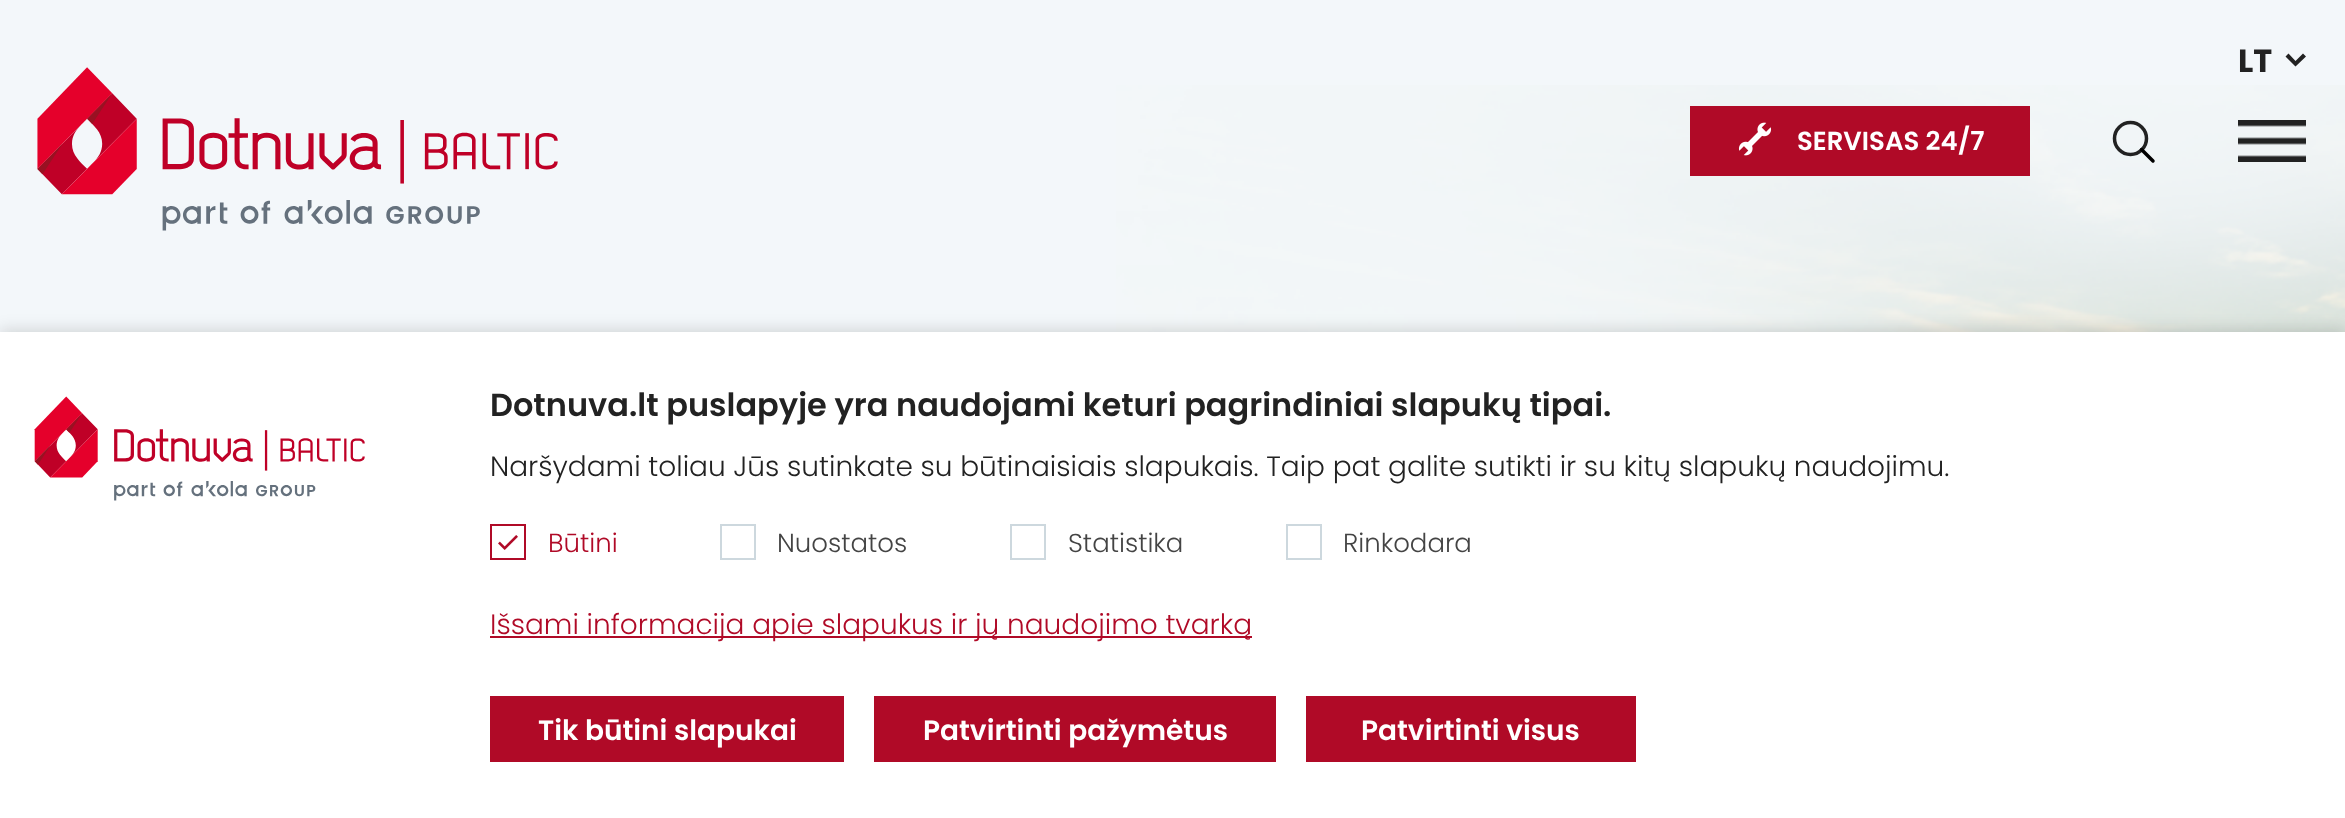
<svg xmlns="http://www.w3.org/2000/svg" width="2345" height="818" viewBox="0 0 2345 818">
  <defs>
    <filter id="blur1" x="-50%" y="-200%" width="200%" height="500%"><feGaussianBlur stdDeviation="8"/></filter>
  </defs>
  <rect width="100%" height="100%" fill="#f3f7fa"/>
  <image x="37" y="67" width="521" height="164" href="img1.png"/>
  <text x="2238" y="72" font-family="Poppins" font-size="32" font-weight="bold" fill="#222222">LT</text>
  <path d="M2306 56.5L2303 53.5L2295.5 61L2288.5 53.5L2285.5 56.5L2295.5 66.5Z" fill="#222222" fill-rule="evenodd"/>
  <image x="1116" y="85" width="1229" height="247" href="img4.png"/>
  <rect x="1690" y="106" width="340" height="70" fill="#b00a27"/>
  <image x="1738" y="122" width="34" height="34" href="img2.png"/>
  <text x="1797" y="150" font-family="Poppins" font-size="26" font-weight="600" fill="#ffffff">SERVISAS 24/7</text>
  <circle cx="2130.5" cy="138.5" r="16" fill="none" stroke="#222222" stroke-width="3.5"/>
  <path d="M2153 161L2141.5 149.5" fill="none" stroke="#000000" stroke-width="3.5" stroke-linecap="round" stroke-linejoin="round"/>
  <image x="2238" y="120" width="68" height="42" href="img3.png"/>
  <rect x="0" y="330" width="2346" height="486" fill="#000000" fill-opacity="0.15" filter="url(#blur1)"/>
  <rect x="0" y="332" width="2345" height="486" fill="#ffffff"/>
  <image x="34" y="396" width="331" height="105" href="img5.png"/>
  <text x="490" y="416" font-family="Poppins" font-size="32" font-weight="600" fill="#222222">Dotnuva.lt puslapyje yra naudojami keturi pagrindiniai slapukų tipai.</text>
  <text x="490" y="476" font-family="Poppins" font-size="28" font-weight="300" fill="#222222">Naršydami toliau Jūs sutinkate su būtinaisiais slapukais. Taip pat galite sutikti ir su kitų slapukų naudojimu.</text>
  <image x="498" y="535" width="20" height="15" href="img6.png"/>
  <rect x="491" y="525" width="34" height="34" fill="none" stroke="#b00a27" stroke-width="2"/>
  <text x="548" y="552" font-family="Poppins" font-size="26" font-weight="300" fill="#b00a27">Būtini</text>
  <rect x="721" y="525" width="34" height="34" fill="none" stroke="#cdd8de" stroke-width="2"/>
  <text x="777" y="552" font-family="Poppins" font-size="26" font-weight="300" fill="#444444">Nuostatos</text>
  <rect x="1011" y="525" width="34" height="34" fill="none" stroke="#cdd8de" stroke-width="2"/>
  <text x="1068" y="552" font-family="Poppins" font-size="26" font-weight="300" fill="#444444">Statistika</text>
  <rect x="1287" y="525" width="34" height="34" fill="none" stroke="#cdd8de" stroke-width="2"/>
  <text x="1343" y="552" font-family="Poppins" font-size="26" font-weight="300" fill="#444444">Rinkodara</text>
  <rect x="490" y="636" width="762" height="2" fill="#b00a27"/>
  <text x="490" y="634" font-family="Poppins" font-size="28" font-weight="300" fill="#b00a27">Išsami informacija apie slapukus ir jų naudojimo tvarką</text>
  <rect x="490" y="696" width="354" height="66" fill="#b00a27"/>
  <text x="538" y="740" font-family="Poppins" font-size="28" font-weight="600" fill="#ffffff">Tik būtini slapukai</text>
  <rect x="874" y="696" width="402" height="66" fill="#b00a27"/>
  <text x="923" y="740" font-family="Poppins" font-size="28" font-weight="600" fill="#ffffff">Patvirtinti pažymėtus</text>
  <rect x="1306" y="696" width="330" height="66" fill="#b00a27"/>
  <text x="1361" y="740" font-family="Poppins" font-size="28" font-weight="600" fill="#ffffff">Patvirtinti visus</text>
</svg>
